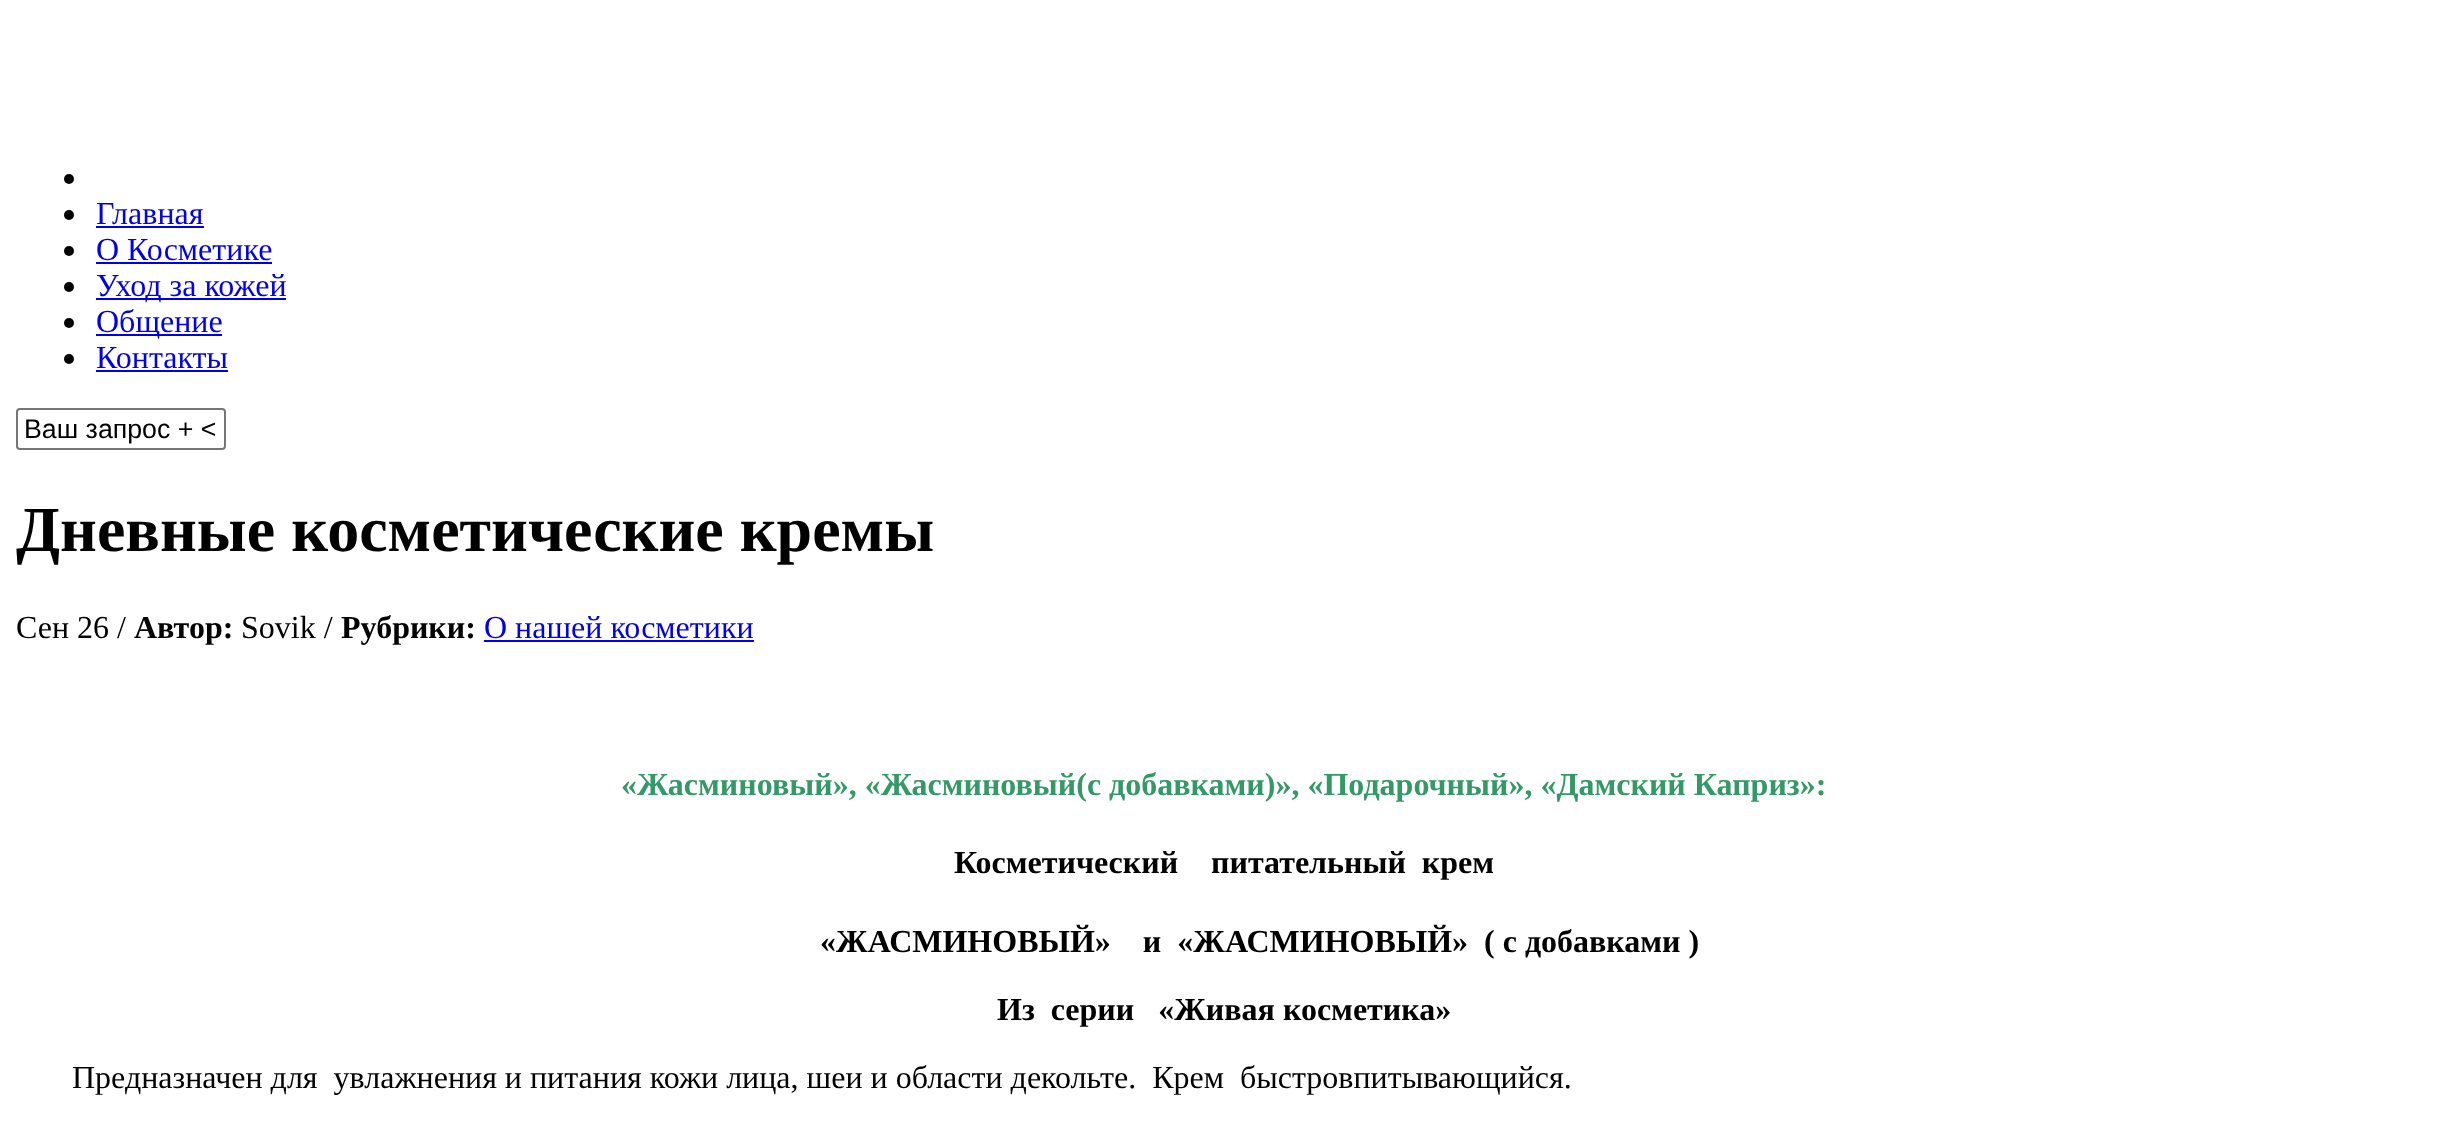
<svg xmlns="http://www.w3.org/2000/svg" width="2447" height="1140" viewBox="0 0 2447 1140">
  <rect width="100%" height="100%" fill="#ffffff"/>
  <circle cx="69" cy="179" r="5" fill="#000000"/>
  <circle cx="69" cy="215" r="5" fill="#000000"/>
  <text x="96" y="224" font-family="Liberation Serif" font-size="32" fill="#0000ee">Главная</text>
  <rect x="96" y="226" width="108" height="2" fill="#0000ee"/>
  <circle cx="69" cy="251" r="5" fill="#000000"/>
  <text x="96" y="260" font-family="Liberation Serif" font-size="32" fill="#0000ee">О Косметике</text>
  <rect x="96" y="262" width="176" height="2" fill="#0000ee"/>
  <circle cx="69" cy="287" r="5" fill="#000000"/>
  <rect x="96" y="298" width="190" height="2" fill="#0000ee"/>
  <text x="96" y="296" font-family="Liberation Serif" font-size="32" fill="#0000ee">Уход за кожей</text>
  <circle cx="69" cy="323" r="5" fill="#000000"/>
  <rect x="96" y="334" width="126" height="2" fill="#0000ee"/>
  <text x="96" y="332" font-family="Liberation Serif" font-size="32" fill="#0000ee">Общение</text>
  <circle cx="69" cy="359" r="5" fill="#000000"/>
  <text x="96" y="368" font-family="Liberation Serif" font-size="32" fill="#0000ee">Контакты</text>
  <rect x="96" y="370" width="132" height="2" fill="#0000ee"/>
  <rect x="17" y="409" width="208" height="40" rx="3" fill="none" stroke="#767676" stroke-width="2"/>
  <text x="24" y="438" font-family="Liberation Sans" font-size="26.75" fill="#000000">Ваш запрос + &lt;</text>
  <text x="16" y="551" font-family="Liberation Serif" font-size="64" font-weight="bold" fill="#000000">Дневные косметические кремы</text>
  <text x="16" y="638" font-family="Liberation Serif" font-size="32" fill="#000000">Сен 26 /</text>
  <text x="134" y="638" font-family="Liberation Serif" font-size="32" font-weight="bold" fill="#000000">Автор:</text>
  <text x="241" y="638" font-family="Liberation Serif" font-size="32" fill="#000000">Sovik /</text>
  <text x="341" y="638" font-family="Liberation Serif" font-size="32" font-weight="bold" fill="#000000">Рубрики:</text>
  <text x="484" y="638" font-family="Liberation Serif" font-size="32" fill="#0000ee">О нашей косметики</text>
  <rect x="484" y="640" width="270" height="2" fill="#0000ee"/>
  <text x="621" y="795" font-family="Liberation Serif" font-size="32" font-weight="bold" fill="#339966">«Жасминовый», «Жасминовый(с добавками)», «Подарочный», «Дамский Каприз»:</text>
  <text x="954" y="873" font-family="Liberation Serif" font-size="32" font-weight="bold" fill="#000000">Косметический</text>
  <text x="1211" y="873" font-family="Liberation Serif" font-size="32" font-weight="bold" fill="#000000" xml:space="preserve">питательный  крем</text>
  <text x="820" y="952" font-family="Liberation Serif" font-size="32" font-weight="bold" fill="#000000" xml:space="preserve">«ЖАСМИНОВЫЙ»    и  «ЖАСМИНОВЫЙ»  ( с добавками )</text>
  <text x="997" y="1020" font-family="Liberation Serif" font-size="32" font-weight="bold" fill="#000000" xml:space="preserve">Из  серии   «Живая косметика»</text>
  <text x="72" y="1088" font-family="Liberation Serif" font-size="32" fill="#000000" xml:space="preserve">Предназначен для  увлажнения и питания кожи лица, шеи и области декольте.  Крем  быстровпитывающийся.</text>
</svg>
